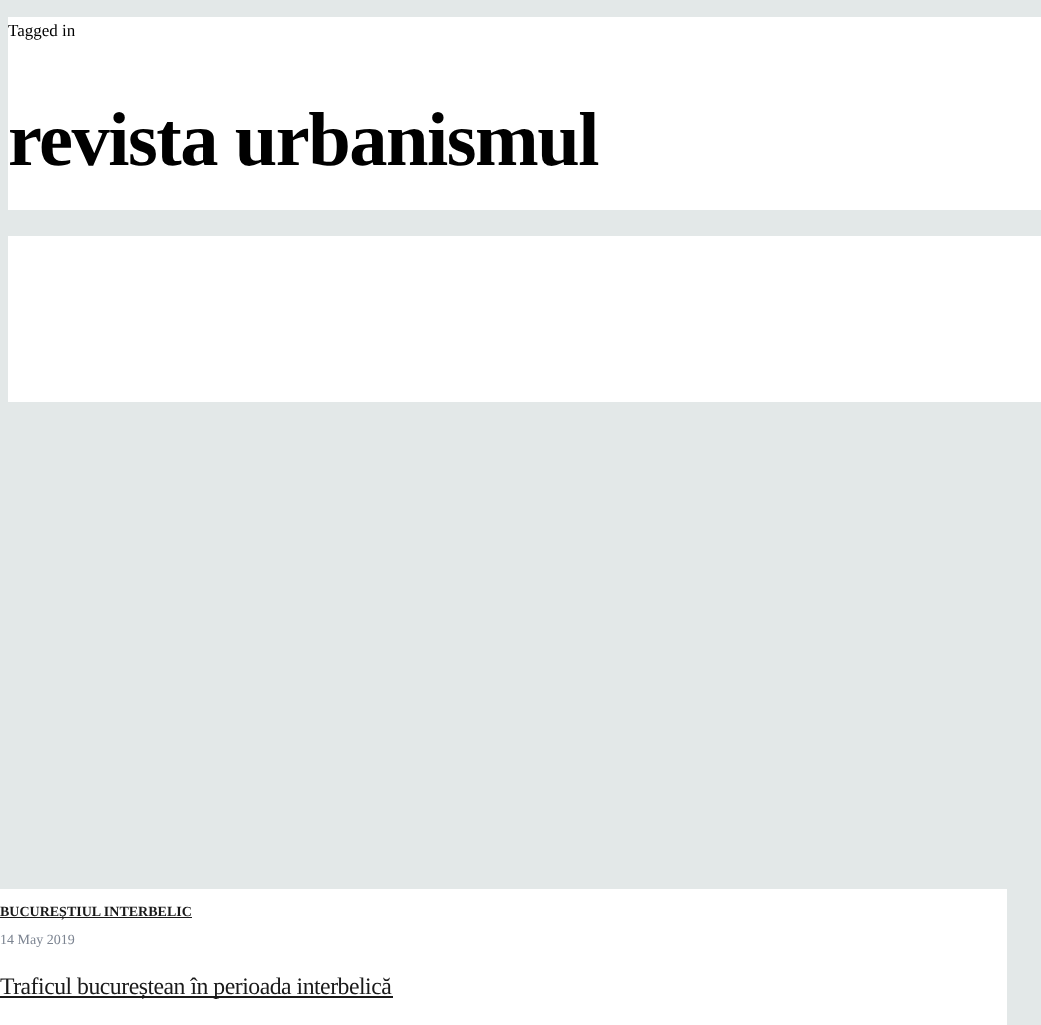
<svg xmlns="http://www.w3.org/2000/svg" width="1041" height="1025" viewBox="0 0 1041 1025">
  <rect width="100%" height="100%" fill="#e3e8e8"/>
  <rect x="8" y="17" width="1033" height="193" fill="#ffffff"/>
  <text x="8" y="36" font-family="Liberation Serif" font-size="17" fill="#000000">Tagged in</text>
  <text x="8" y="165" font-family="Liberation Serif" font-size="76.5" font-weight="bold" letter-spacing="-1.5" fill="#000000">revista urbanismul</text>
  <rect x="0" y="889" width="1007" height="136" fill="#ffffff"/>
  <rect x="0" y="917" width="192" height="1" fill="#1a1a1a"/>
  <text x="0" y="916" font-family="Liberation Serif" font-size="14" font-weight="bold" fill="#1a1a1a">BUCUREȘTIUL INTERBELIC</text>
  <text x="0" y="944" font-family="Liberation Serif" font-size="14" fill="#7c8491">14 May 2019</text>
  <rect x="0" y="996" width="393" height="2" fill="#1a1a1a"/>
  <text x="0" y="994" font-family="Liberation Serif" font-size="23.75" letter-spacing="-0.5" fill="#1a1a1a">Traficul bucureștean în perioada interbelică</text>
  <rect x="8" y="236" width="1033" height="166" fill="#ffffff"/>
</svg>
